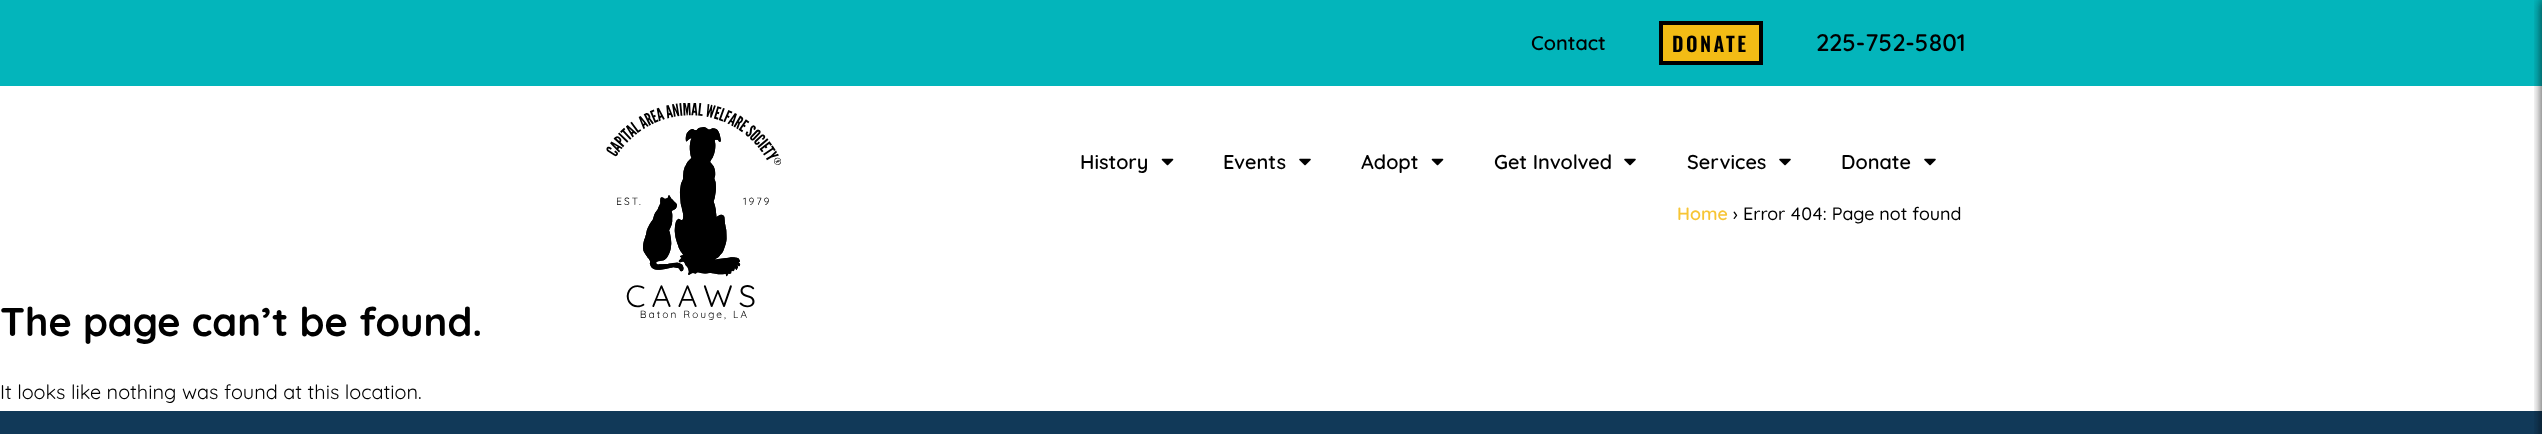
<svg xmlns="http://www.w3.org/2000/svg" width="2542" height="434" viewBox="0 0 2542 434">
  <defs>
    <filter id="blur1" x="-50%" y="-200%" width="200%" height="500%"><feGaussianBlur stdDeviation="6"/></filter>
  </defs>
  <rect width="100%" height="100%" fill="#ffffff"/>
  <rect x="0" y="0" width="2542" height="86" fill="#03b5bb"/>
  <rect x="0" y="411" width="2542" height="23" fill="#113958"/>
  <rect x="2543" y="0" width="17" height="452" fill="#000000" fill-opacity="0.5" filter="url(#blur1)"/>
  <text x="1531" y="50" font-family="Quicksand" font-size="20" font-weight="600" fill="#000000">Contact</text>
  <rect x="1661" y="23" width="100" height="40" fill="#f3bc15" stroke="#000000" stroke-width="4"/>
  <text x="1672" y="52" font-family="Oswald" font-size="20" font-weight="600" letter-spacing="2.5" fill="#000000">DONATE</text>
  <text x="1816" y="51" font-family="Quicksand" font-size="24" font-weight="600" fill="#000000">225-752-5801</text>
  <image x="606" y="103" width="175" height="217" href="img1.png"/>
  <text x="1080" y="169" font-family="Quicksand" font-size="20" font-weight="600" fill="#000000">History</text>
  <image x="1161" y="158" width="13" height="8" href="img2.png"/>
  <text x="1223" y="169" font-family="Quicksand" font-size="20" font-weight="600" fill="#000000">Events</text>
  <image x="1299" y="158" width="12" height="8" href="img3.png"/>
  <text x="1361" y="169" font-family="Quicksand" font-size="20" font-weight="600" fill="#000000">Adopt</text>
  <image x="1431" y="158" width="13" height="8" href="img2.png"/>
  <text x="1494" y="169" font-family="Quicksand" font-size="20" font-weight="600" fill="#000000">Get Involved</text>
  <image x="1624" y="158" width="12" height="8" href="img3.png"/>
  <text x="1687" y="169" font-family="Quicksand" font-size="20" font-weight="600" fill="#000000">Services</text>
  <image x="1779" y="158" width="12" height="8" href="img3.png"/>
  <text x="1841" y="169" font-family="Quicksand" font-size="20" font-weight="600" fill="#000000">Donate</text>
  <image x="1924" y="158" width="12" height="8" href="img3.png"/>
  <text x="1677" y="220" font-family="Quicksand" font-size="18" font-weight="600" fill="#f7c535">Home</text>
  <text x="1733" y="220" font-family="Quicksand" font-size="18" font-weight="500" fill="#000000">› Error 404: Page not found</text>
  <rect x="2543" y="0" width="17" height="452" fill="#000000" fill-opacity="0.5" filter="url(#blur1)"/>
  <text x="0" y="336" font-family="Quicksand" font-size="40" font-weight="bold" fill="#000000">The page can’t be found.</text>
  <text x="0" y="399" font-family="Quicksand" font-size="20" fill="#000000">It looks like nothing was found at this location.</text>
</svg>
